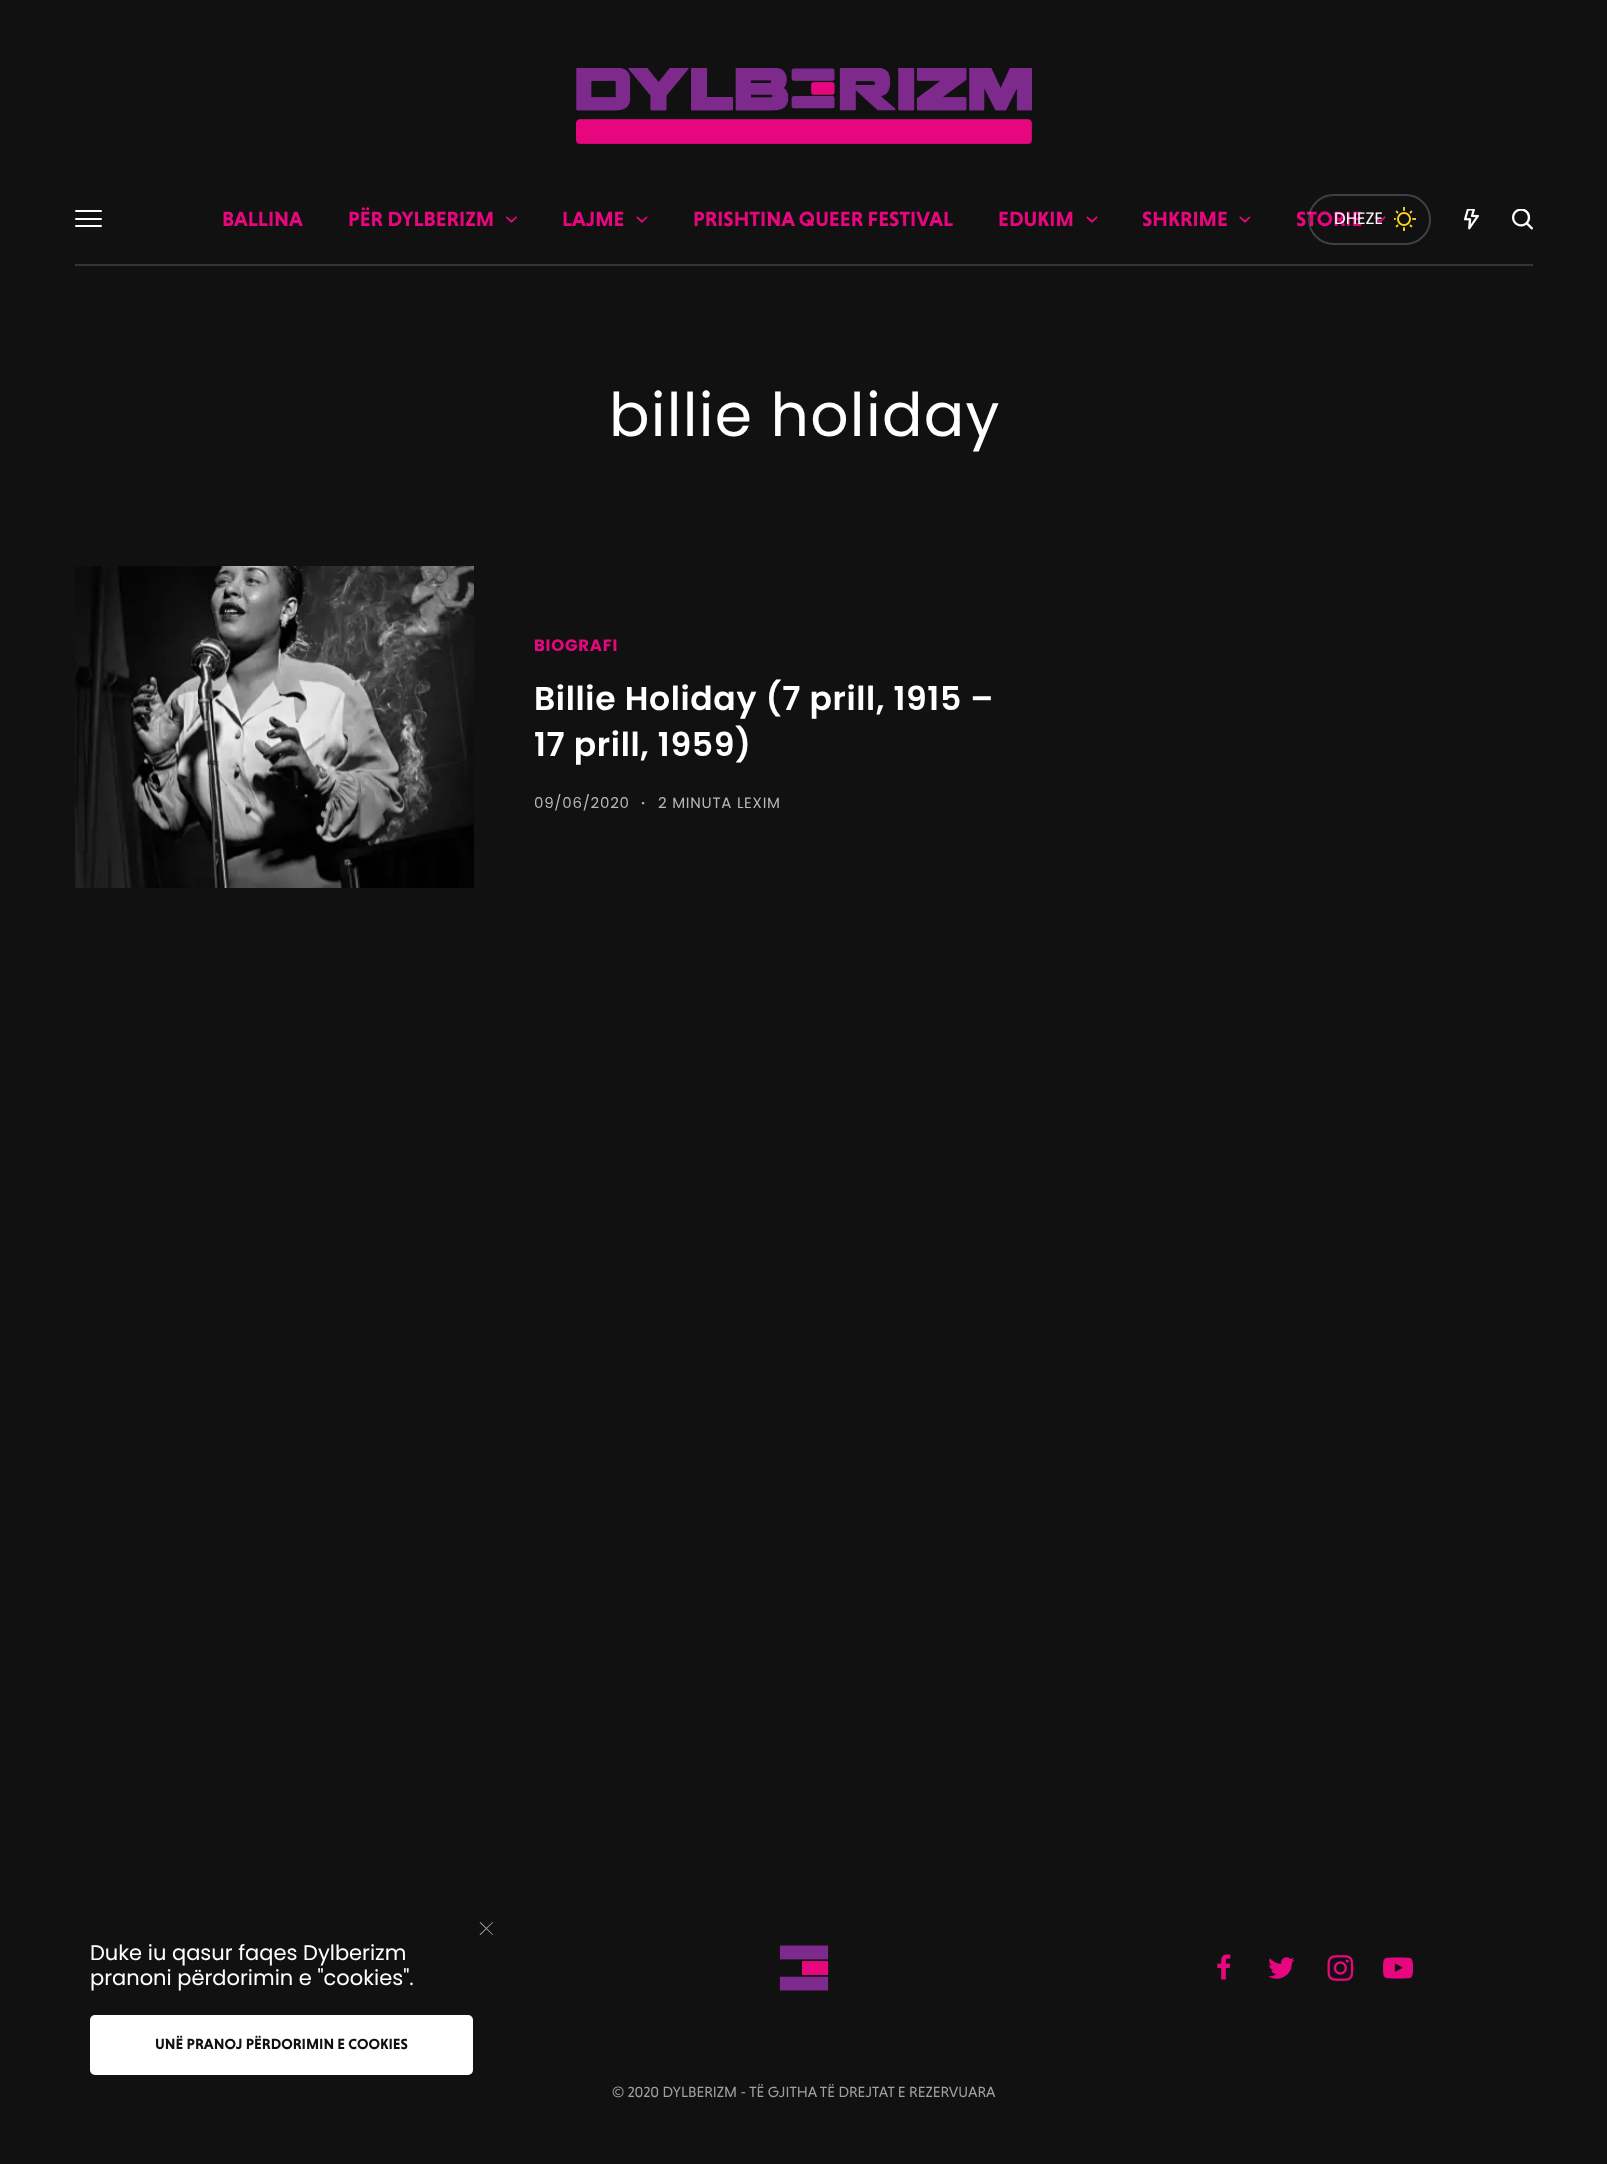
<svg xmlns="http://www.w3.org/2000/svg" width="1607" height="2164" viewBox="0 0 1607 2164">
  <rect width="100%" height="100%" fill="#111111"/>
  <image x="576" y="68" width="456" height="76" href="img1.png"/>
  <rect x="75" y="264" width="1458" height="2" fill="#353535"/>
  <rect x="75" y="210" width="27" height="2" rx="1" fill="#ffffff"/>
  <rect x="75" y="218" width="27" height="2" rx="1" fill="#ffffff"/>
  <rect x="75" y="225" width="27" height="2" rx="1" fill="#ffffff"/>
  <text x="222" y="226" font-family="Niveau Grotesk" font-size="21" font-weight="bold" fill="#e6077e">BALLINA</text>
  <text x="348" y="226" font-family="Niveau Grotesk" font-size="21" font-weight="bold" fill="#e6077e">PËR DYLBERIZM</text>
  <image x="505" y="216" width="12" height="7" href="img2.png"/>
  <text x="562" y="226" font-family="Niveau Grotesk" font-size="21" font-weight="bold" fill="#e6077e">LAJME</text>
  <image x="636" y="216" width="12" height="7" href="img3.png"/>
  <text x="693" y="226" font-family="Niveau Grotesk" font-size="21" font-weight="bold" fill="#e6077e">PRISHTINA QUEER FESTIVAL</text>
  <text x="998" y="226" font-family="Niveau Grotesk" font-size="21" font-weight="bold" fill="#e6077e">EDUKIM</text>
  <image x="1086" y="216" width="12" height="7" href="img3.png"/>
  <text x="1142" y="226" font-family="Niveau Grotesk" font-size="21" font-weight="bold" fill="#e6077e">SHKRIME</text>
  <image x="1239" y="216" width="12" height="7" href="img3.png"/>
  <text x="1296" y="226" font-family="Niveau Grotesk" font-size="21" font-weight="bold" fill="#e6077e">STORIE</text>
  <image x="1374" y="216" width="12" height="7" href="img3.png"/>
  <rect x="1309" y="195" width="121" height="49" rx="24.5" fill="none" stroke="#ffffff" stroke-opacity="0.2" stroke-width="2"/>
  <text x="1334" y="224" font-family="Poppins" font-size="16.5" fill="#ffffff">DHEZE</text>
  <image x="1394" y="207" width="22" height="24" href="img4.png"/>
  <image x="1464" y="209" width="15" height="21" href="img5.png"/>
  <image x="1512" y="209" width="21" height="21" href="img6.png"/>
  <text x="609" y="436" font-family="Poppins" font-size="60" letter-spacing="1.25" fill="#ffffff">billie holiday</text>
  <image x="75" y="566" width="399" height="322" href="img7.png"/>
  <text x="534" y="651" font-family="Poppins" font-size="16.5" font-weight="bold" letter-spacing="0.75" fill="#e6077e">BIOGRAFI</text>
  <text x="534" y="710" font-family="Poppins" font-size="33" font-weight="600" letter-spacing="0.65" fill="#ffffff">Billie Holiday (7 prill, 1915 –</text>
  <text x="534" y="756" font-family="Poppins" font-size="33" font-weight="600" letter-spacing="0.65" fill="#ffffff">17 prill, 1959)</text>
  <text x="534" y="808" font-family="Poppins" font-size="15" letter-spacing="0.75" fill="#b8b8b8">09/06/2020</text>
  <text x="641" y="808" font-family="Poppins" font-size="15" font-weight="600" letter-spacing="0.75" fill="#b8b8b8">·</text>
  <text x="658" y="808" font-family="Poppins" font-size="15" letter-spacing="0.75" fill="#b8b8b8">2 MINUTA LEXIM</text>
  <path d="M480.5 1922L493 1934.5L492.5 1935L479.5 1922.5Z" fill="#a3a3a3"/>
  <path d="M479.5 1934.5L492.5 1922L493 1922.5L480.5 1935Z" fill="#a3a3a3"/>
  <text x="90" y="1960" font-family="Poppins" font-size="21" fill="#ffffff">Duke iu qasur faqes Dylberizm</text>
  <text x="90" y="1985" font-family="Poppins" font-size="21" fill="#ffffff">pranoni përdorimin e "cookies".</text>
  <rect x="90" y="2015" width="383" height="60" rx="5" fill="#ffffff"/>
  <text x="155" y="2049" font-family="Niveau Grotesk" font-size="15" font-weight="bold" fill="#111111">UNË PRANOJ PËRDORIMIN E COOKIES</text>
  <image x="779" y="1945" width="50" height="46" href="img8.png"/>
  <image x="1217" y="1954" width="14" height="26" href="img9.png"/>
  <image x="1268" y="1957" width="27" height="22" href="img10.png"/>
  <image x="1327" y="1955" width="27" height="26" href="img11.png"/>
  <image x="1383" y="1957" width="30" height="22" href="img12.png"/>
  <text x="612" y="2097" font-family="Niveau Grotesk" font-size="15" fill="#a0a0a0">© 2020 DYLBERIZM - TË GJITHA TË DREJTAT E REZERVUARA</text>
</svg>
